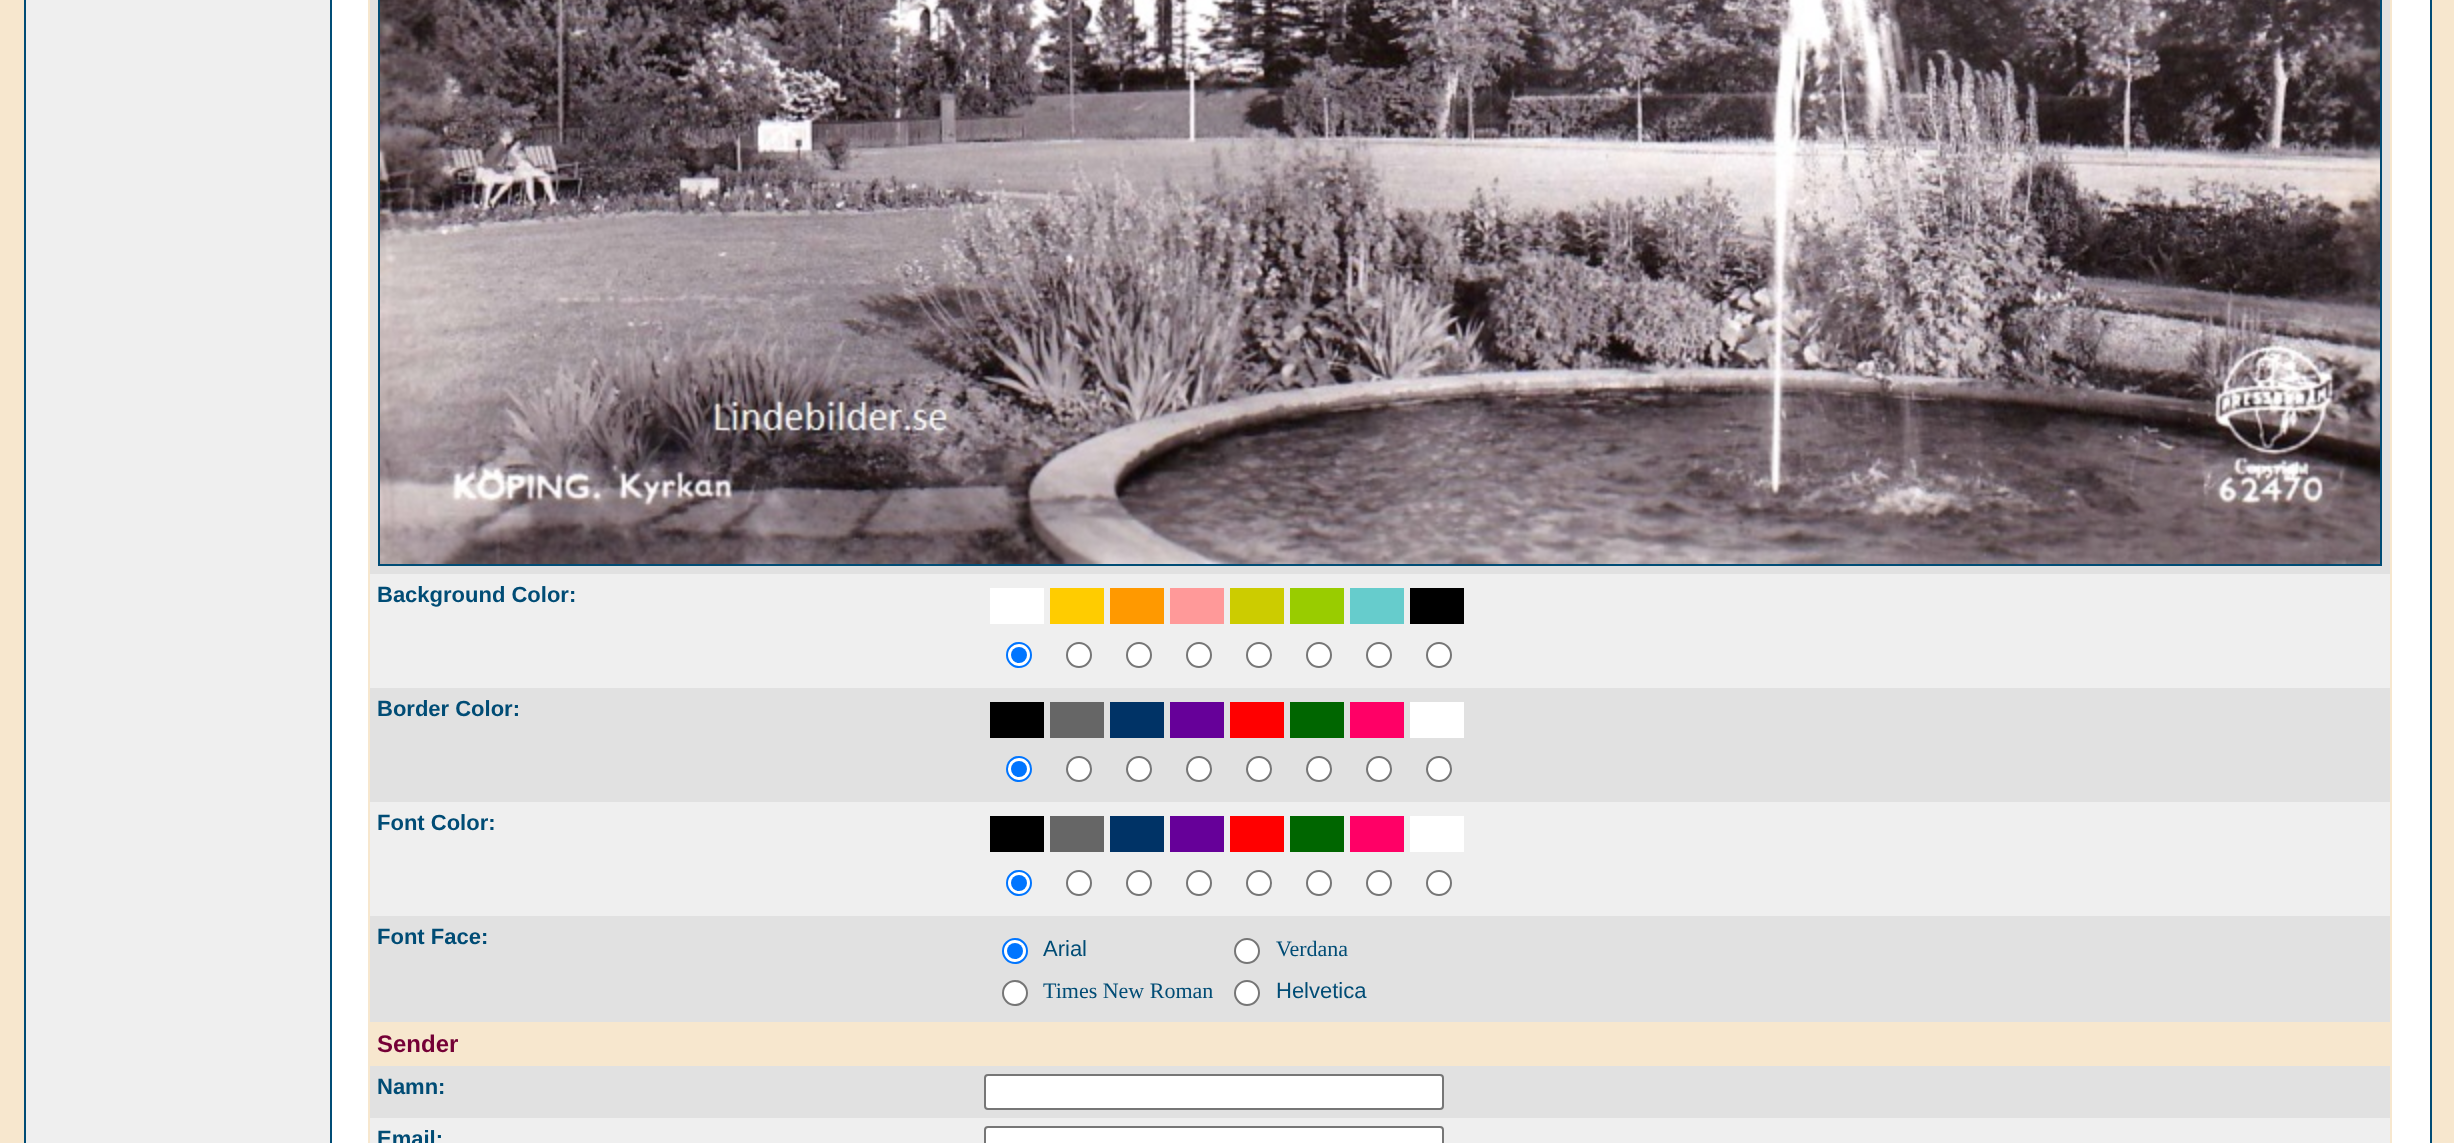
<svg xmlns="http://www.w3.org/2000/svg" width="2454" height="1143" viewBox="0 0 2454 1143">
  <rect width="100%" height="100%" fill="#f7e7ce"/>
  <rect x="24" y="0" width="2408" height="1143" fill="#004c75"/>
  <rect x="332" y="0" width="2098" height="1143" fill="#ffffff"/>
  <rect x="26" y="0" width="304" height="1143" fill="#efefef"/>
  <rect x="368" y="0" width="2024" height="1143" fill="#f7e7ce"/>
  <rect x="370" y="0" width="2020" height="574" fill="#e1e1e1"/>
  <rect x="379" y="-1" width="2002" height="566" fill="none" stroke="#004c75" stroke-width="2"/>
  <image x="380" y="0" width="2000" height="564" href="img1.png"/>
  <rect x="370" y="574" width="2020" height="114" fill="#efefef"/>
  <text x="377" y="602" font-family="Liberation Sans" font-size="22" font-weight="bold" fill="#004c75">Background Color:</text>
  <rect x="990" y="588" width="54" height="36" fill="#ffffff"/>
  <rect x="1050" y="588" width="54" height="36" fill="#ffcc00"/>
  <rect x="1110" y="588" width="54" height="36" fill="#ff9900"/>
  <rect x="1170" y="588" width="54" height="36" fill="#ff9999"/>
  <rect x="1230" y="588" width="54" height="36" fill="#cccc00"/>
  <rect x="1290" y="588" width="54" height="36" fill="#99cc00"/>
  <rect x="1350" y="588" width="54" height="36" fill="#66cccc"/>
  <rect x="1410" y="588" width="54" height="36" fill="#000000"/>
  <circle cx="1019" cy="655" r="12" fill="#ffffff" stroke="#0075ff" stroke-width="2"/>
  <circle cx="1019" cy="655" r="8" fill="#0075ff"/>
  <circle cx="1079" cy="655" r="12" fill="#ffffff" stroke="#767676" stroke-width="2"/>
  <circle cx="1139" cy="655" r="12" fill="#ffffff" stroke="#767676" stroke-width="2"/>
  <circle cx="1199" cy="655" r="12" fill="#ffffff" stroke="#767676" stroke-width="2"/>
  <circle cx="1259" cy="655" r="12" fill="#ffffff" stroke="#767676" stroke-width="2"/>
  <circle cx="1319" cy="655" r="12" fill="#ffffff" stroke="#767676" stroke-width="2"/>
  <circle cx="1379" cy="655" r="12" fill="#ffffff" stroke="#767676" stroke-width="2"/>
  <circle cx="1439" cy="655" r="12" fill="#ffffff" stroke="#767676" stroke-width="2"/>
  <rect x="370" y="688" width="2020" height="114" fill="#e1e1e1"/>
  <text x="377" y="716" font-family="Liberation Sans" font-size="22" font-weight="bold" fill="#004c75">Border Color:</text>
  <rect x="990" y="702" width="54" height="36" fill="#000000"/>
  <rect x="1050" y="702" width="54" height="36" fill="#666666"/>
  <rect x="1110" y="702" width="54" height="36" fill="#003366"/>
  <rect x="1170" y="702" width="54" height="36" fill="#660099"/>
  <rect x="1230" y="702" width="54" height="36" fill="#ff0000"/>
  <rect x="1290" y="702" width="54" height="36" fill="#006600"/>
  <rect x="1350" y="702" width="54" height="36" fill="#ff0066"/>
  <rect x="1410" y="702" width="54" height="36" fill="#ffffff"/>
  <circle cx="1019" cy="769" r="12" fill="#ffffff" stroke="#0075ff" stroke-width="2"/>
  <circle cx="1019" cy="769" r="8" fill="#0075ff"/>
  <circle cx="1079" cy="769" r="12" fill="#ffffff" stroke="#767676" stroke-width="2"/>
  <circle cx="1139" cy="769" r="12" fill="#ffffff" stroke="#767676" stroke-width="2"/>
  <circle cx="1199" cy="769" r="12" fill="#ffffff" stroke="#767676" stroke-width="2"/>
  <circle cx="1259" cy="769" r="12" fill="#ffffff" stroke="#767676" stroke-width="2"/>
  <circle cx="1319" cy="769" r="12" fill="#ffffff" stroke="#767676" stroke-width="2"/>
  <circle cx="1379" cy="769" r="12" fill="#ffffff" stroke="#767676" stroke-width="2"/>
  <circle cx="1439" cy="769" r="12" fill="#ffffff" stroke="#767676" stroke-width="2"/>
  <rect x="370" y="802" width="2020" height="114" fill="#efefef"/>
  <text x="377" y="830" font-family="Liberation Sans" font-size="22" font-weight="bold" fill="#004c75">Font Color:</text>
  <rect x="990" y="816" width="54" height="36" fill="#000000"/>
  <rect x="1050" y="816" width="54" height="36" fill="#666666"/>
  <rect x="1110" y="816" width="54" height="36" fill="#003366"/>
  <rect x="1170" y="816" width="54" height="36" fill="#660099"/>
  <rect x="1230" y="816" width="54" height="36" fill="#ff0000"/>
  <rect x="1290" y="816" width="54" height="36" fill="#006600"/>
  <rect x="1350" y="816" width="54" height="36" fill="#ff0066"/>
  <rect x="1410" y="816" width="54" height="36" fill="#ffffff"/>
  <circle cx="1019" cy="883" r="12" fill="#ffffff" stroke="#0075ff" stroke-width="2"/>
  <circle cx="1019" cy="883" r="8" fill="#0075ff"/>
  <circle cx="1079" cy="883" r="12" fill="#ffffff" stroke="#767676" stroke-width="2"/>
  <circle cx="1139" cy="883" r="12" fill="#ffffff" stroke="#767676" stroke-width="2"/>
  <circle cx="1199" cy="883" r="12" fill="#ffffff" stroke="#767676" stroke-width="2"/>
  <circle cx="1259" cy="883" r="12" fill="#ffffff" stroke="#767676" stroke-width="2"/>
  <circle cx="1319" cy="883" r="12" fill="#ffffff" stroke="#767676" stroke-width="2"/>
  <circle cx="1379" cy="883" r="12" fill="#ffffff" stroke="#767676" stroke-width="2"/>
  <circle cx="1439" cy="883" r="12" fill="#ffffff" stroke="#767676" stroke-width="2"/>
  <rect x="370" y="916" width="2020" height="106" fill="#e1e1e1"/>
  <text x="377" y="944" font-family="Liberation Sans" font-size="22" font-weight="bold" fill="#004c75">Font Face:</text>
  <circle cx="1015" cy="951" r="12" fill="#ffffff" stroke="#0075ff" stroke-width="2"/>
  <circle cx="1015" cy="951" r="8" fill="#0075ff"/>
  <text x="1043" y="956" font-family="Liberation Sans" font-size="22" fill="#004c75">Arial</text>
  <circle cx="1247" cy="951" r="12" fill="#ffffff" stroke="#767676" stroke-width="2"/>
  <text x="1276" y="956" font-family="Liberation Serif" font-size="22" fill="#004c75">Verdana</text>
  <circle cx="1015" cy="993" r="12" fill="#ffffff" stroke="#767676" stroke-width="2"/>
  <text x="1043" y="998" font-family="Liberation Serif" font-size="22" fill="#004c75">Times New Roman</text>
  <circle cx="1247" cy="993" r="12" fill="#ffffff" stroke="#767676" stroke-width="2"/>
  <text x="1276" y="998" font-family="Liberation Sans" font-size="22" fill="#004c75">Helvetica</text>
  <text x="377" y="1052" font-family="Liberation Sans" font-size="24" font-weight="bold" fill="#750036">Sender</text>
  <rect x="370" y="1066" width="2020" height="52" fill="#e1e1e1"/>
  <text x="377" y="1094" font-family="Liberation Sans" font-size="22" font-weight="bold" fill="#004c75">Namn:</text>
  <rect x="985" y="1075" width="458" height="34" rx="3" fill="#ffffff" stroke="#767676" stroke-width="2"/>
  <rect x="370" y="1118" width="2020" height="25" fill="#efefef"/>
  <text x="377" y="1146" font-family="Liberation Sans" font-size="22" font-weight="bold" fill="#004c75">Email:</text>
  <rect x="985" y="1127" width="458" height="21" rx="3" fill="#ffffff" stroke="#767676" stroke-width="2"/>
</svg>
